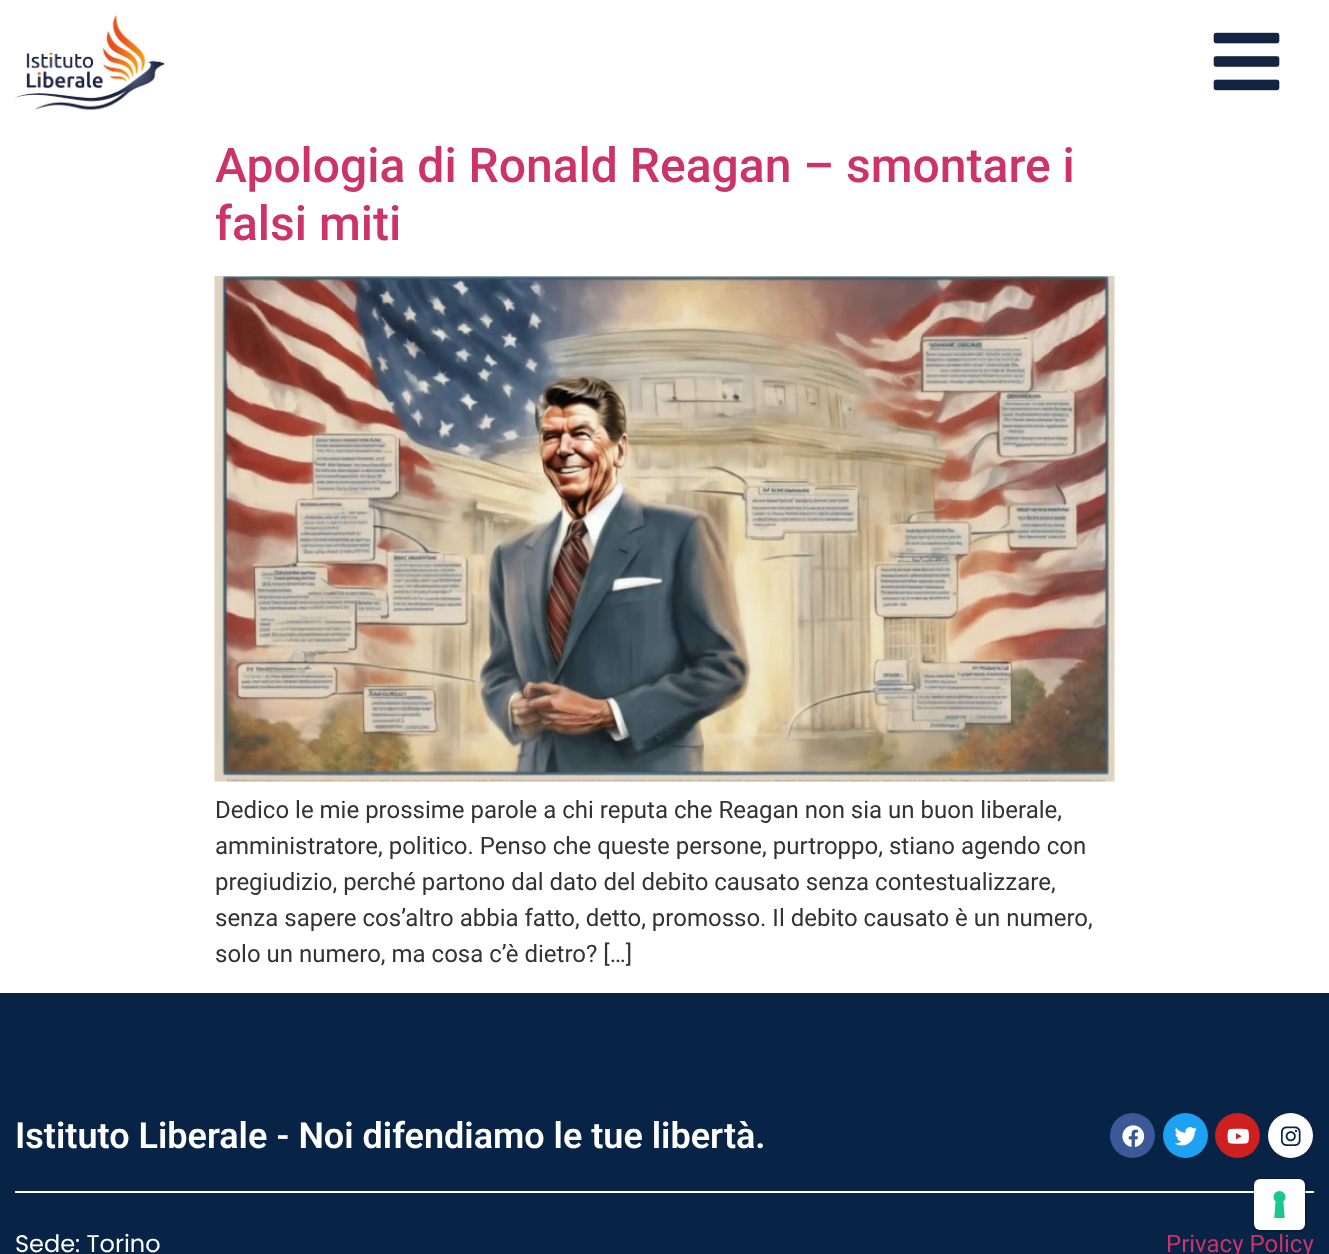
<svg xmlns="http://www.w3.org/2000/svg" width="1329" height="1254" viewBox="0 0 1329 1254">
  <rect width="100%" height="100%" fill="#ffffff"/>
  <image x="15" y="15" width="150" height="95" href="img1.png"/>
  <image x="1213" y="32" width="67" height="59" href="img2.png"/>
  <text x="215" y="182" font-family="Roboto" font-size="48" font-weight="500" fill="#cc3366">Apologia di Ronald Reagan – smontare i</text>
  <text x="215" y="240" font-family="Roboto" font-size="48" font-weight="500" fill="#cc3366">falsi miti</text>
  <image x="214" y="276" width="901" height="506" href="img3.png"/>
  <text x="215" y="818" font-family="Roboto" font-size="24" fill="#333333">Dedico le mie prossime parole a chi reputa che Reagan non sia un buon liberale,</text>
  <text x="215" y="854" font-family="Roboto" font-size="24" fill="#333333">amministratore, politico. Penso che queste persone, purtroppo, stiano agendo con</text>
  <text x="215" y="890" font-family="Roboto" font-size="24" fill="#333333">pregiudizio, perché partono dal dato del debito causato senza contestualizzare,</text>
  <text x="215" y="926" font-family="Roboto" font-size="24" fill="#333333">senza sapere cos’altro abbia fatto, detto, promosso. Il debito causato è un numero,</text>
  <text x="215" y="962" font-family="Roboto" font-size="24" fill="#333333">solo un numero, ma cosa c’è dietro? […]</text>
  <rect x="0" y="993" width="1329" height="261" fill="#072446"/>
  <text x="15" y="1148" font-family="Roboto" font-size="36" font-weight="600" fill="#ffffff">Istituto Liberale - Noi difendiamo le tue libertà.</text>
  <circle cx="1132.5" cy="1135.5" r="22.5" fill="#3b5998"/>
  <image x="1122" y="1125" width="23" height="22" href="img4.png"/>
  <circle cx="1185.5" cy="1135.5" r="22.5" fill="#1da1f2"/>
  <image x="1175" y="1127" width="22" height="19" href="img5.png"/>
  <circle cx="1237.5" cy="1135.5" r="22.5" fill="#cd201f"/>
  <image x="1227" y="1128" width="22" height="16" href="img6.png"/>
  <circle cx="1290.5" cy="1135.5" r="22.5" fill="#ffffff"/>
  <image x="1280" y="1126" width="21" height="20" href="img7.png"/>
  <rect x="15" y="1191" width="1299" height="2" fill="#ffffff"/>
  <text x="15" y="1252" font-family="Poppins" font-size="24" fill="#ffffff">Sede: Torino</text>
  <text x="1166" y="1252" font-family="Roboto" font-size="24" fill="#cc3366">Privacy Policy</text>
  <rect x="1254" y="1179" width="52" height="52" rx="7" fill="none" stroke="#000000" stroke-opacity="0.15" stroke-width="2"/>
  <rect x="1254" y="1179" width="51" height="51" rx="6" fill="#ffffff"/>
  <image x="1273" y="1191" width="13" height="27" href="img8.png"/>
</svg>
